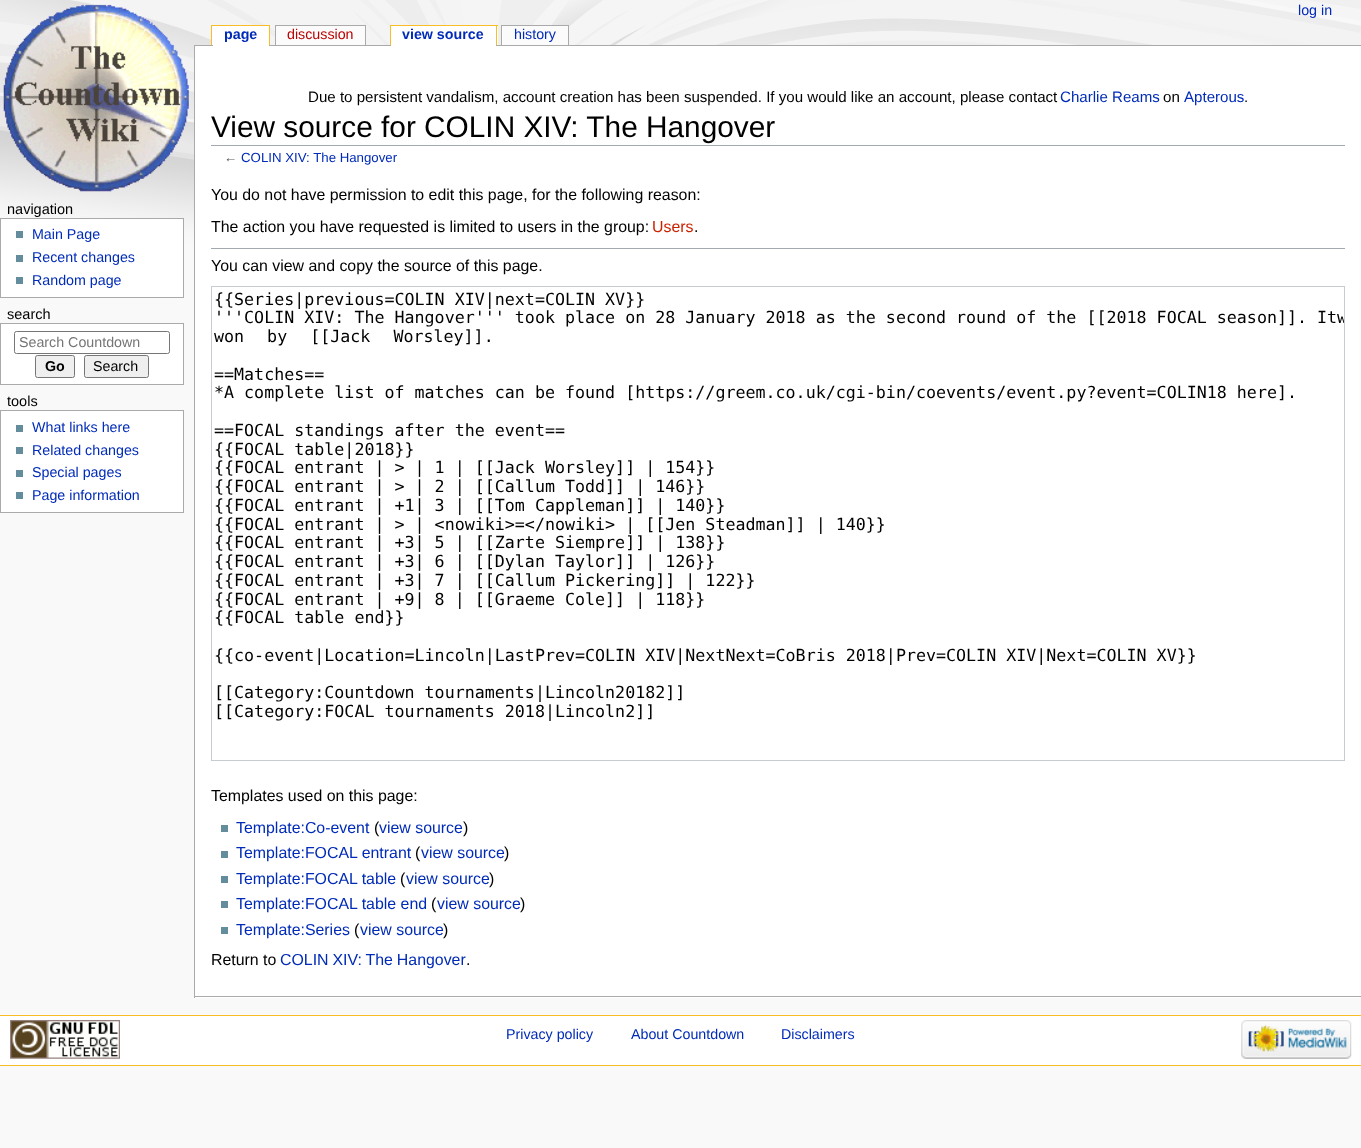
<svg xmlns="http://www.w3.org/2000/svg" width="1361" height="1148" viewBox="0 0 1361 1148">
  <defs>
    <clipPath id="clip1"><rect x="213" y="288" width="1131" height="472"/></clipPath>
  </defs>
  <rect width="100%" height="100%" fill="#f9f9f9"/>
  <image x="0" y="0" width="1361" height="263" href="img1.png"/>
  <image x="3" y="4" width="186" height="188" href="img2.png"/>
  <text x="1298" y="15" font-family="Liberation Sans" font-size="14.25" fill="#002bb8">log in</text>
  <rect x="194" y="45" width="1167" height="1" fill="#aaaaaa"/>
  <rect x="213" y="26" width="56" height="20" fill="#ffffff"/>
  <text x="224" y="39" font-family="Liberation Sans" font-size="14.25" font-weight="bold" fill="#002bb8">page</text>
  <rect x="212" y="26" width="1" height="19" fill="#ffffff"/>
  <rect x="211" y="25" width="59" height="1" fill="#fabd23"/>
  <rect x="269" y="25" width="1" height="20" fill="#fabd23"/>
  <rect x="211" y="25" width="1" height="20" fill="#fabd23"/>
  <rect x="276" y="26" width="89" height="19" fill="#fbfbfb"/>
  <text x="287" y="39" font-family="Liberation Sans" font-size="14.25" fill="#ba0000">discussion</text>
  <rect x="275" y="25" width="91" height="1" fill="#aaaaaa"/>
  <rect x="365" y="25" width="1" height="20" fill="#aaaaaa"/>
  <rect x="275" y="25" width="1" height="20" fill="#aaaaaa"/>
  <rect x="391" y="26" width="105" height="20" fill="#ffffff"/>
  <text x="402" y="39" font-family="Liberation Sans" font-size="14.25" font-weight="bold" fill="#002bb8">view source</text>
  <rect x="497" y="26" width="1" height="19" fill="#ffffff"/>
  <rect x="390" y="25" width="108" height="1" fill="#fabd23"/>
  <rect x="496" y="25" width="1" height="20" fill="#fabd23"/>
  <rect x="390" y="25" width="1" height="20" fill="#fabd23"/>
  <rect x="503" y="26" width="65" height="19" fill="#fbfbfb"/>
  <text x="514" y="39" font-family="Liberation Sans" font-size="14.25" fill="#002bb8">history</text>
  <rect x="502" y="26" width="1" height="19" fill="#ffffff"/>
  <rect x="501" y="25" width="68" height="1" fill="#aaaaaa"/>
  <rect x="568" y="25" width="1" height="20" fill="#aaaaaa"/>
  <rect x="501" y="25" width="1" height="20" fill="#aaaaaa"/>
  <text x="7" y="214" font-family="Liberation Sans" font-size="14.5" fill="#000000">navigation</text>
  <rect x="0.5" y="218.5" width="183" height="79" fill="#ffffff" stroke="#aaaaaa"/>
  <rect x="16" y="231" width="7" height="7" fill="#638c9c"/>
  <text x="32" y="239" font-family="Liberation Sans" font-size="14.25" fill="#002bb8">Main Page</text>
  <rect x="16" y="255" width="7" height="7" fill="#638c9c"/>
  <text x="32" y="262" font-family="Liberation Sans" font-size="14.25" fill="#002bb8">Recent changes</text>
  <rect x="16" y="277" width="7" height="7" fill="#638c9c"/>
  <text x="32" y="285" font-family="Liberation Sans" font-size="14.25" fill="#002bb8">Random page</text>
  <text x="7" y="319" font-family="Liberation Sans" font-size="14.5" fill="#000000">search</text>
  <rect x="0.5" y="323.5" width="183" height="61" fill="#ffffff" stroke="#aaaaaa"/>
  <rect x="14.5" y="331.5" width="155" height="22" rx="2" fill="none" stroke="#767676"/>
  <text x="19" y="347" font-family="Liberation Sans" font-size="14.25" fill="#757575">Search Countdown</text>
  <rect x="35.5" y="355.5" width="39" height="22" rx="2" fill="#efefef" stroke="#767676"/>
  <text x="45" y="371" font-family="Liberation Sans" font-size="14.25" font-weight="bold" fill="#000000">Go</text>
  <rect x="84.5" y="355.5" width="64" height="22" rx="2" fill="#efefef" stroke="#767676"/>
  <text x="93" y="371" font-family="Liberation Sans" font-size="14.25" fill="#000000">Search</text>
  <text x="7" y="406" font-family="Liberation Sans" font-size="14.5" fill="#000000">tools</text>
  <rect x="0.5" y="410.5" width="183" height="102" fill="#ffffff" stroke="#aaaaaa"/>
  <rect x="16" y="425" width="7" height="7" fill="#638c9c"/>
  <text x="32" y="432" font-family="Liberation Sans" font-size="14.25" fill="#002bb8">What links here</text>
  <rect x="16" y="447" width="7" height="7" fill="#638c9c"/>
  <text x="32" y="455" font-family="Liberation Sans" font-size="14.25" fill="#002bb8">Related changes</text>
  <rect x="16" y="470" width="7" height="7" fill="#638c9c"/>
  <text x="32" y="477" font-family="Liberation Sans" font-size="14.25" fill="#002bb8">Special pages</text>
  <rect x="16" y="492" width="7" height="7" fill="#638c9c"/>
  <text x="32" y="500" font-family="Liberation Sans" font-size="14.25" fill="#002bb8">Page information</text>
  <rect x="195" y="46" width="1166" height="952" fill="#ffffff"/>
  <rect x="194" y="996" width="1167" height="1" fill="#aaaaaa"/>
  <rect x="194" y="45" width="1" height="953" fill="#aaaaaa"/>
  <text x="308" y="102" font-family="Liberation Sans" font-size="15.1" fill="#000000">Due to persistent vandalism, account creation has been suspended. If you would like an account, please contact</text>
  <text x="1060" y="102" font-family="Liberation Sans" font-size="15.1" fill="#002bb8">Charlie Reams</text>
  <text x="1163" y="102" font-family="Liberation Sans" font-size="15.1" fill="#000000">on</text>
  <text x="1184" y="102" font-family="Liberation Sans" font-size="15.1" fill="#002bb8">Apterous</text>
  <text x="1244" y="102" font-family="Liberation Sans" font-size="15.1" fill="#000000">.</text>
  <rect x="211" y="145" width="1134" height="1" fill="#a2a9b1"/>
  <text x="211" y="137" font-family="Liberation Sans" font-size="29.8" fill="#000000">View source for COLIN XIV: The Hangover</text>
  <text x="224" y="162" font-family="Liberation Sans" font-size="13.25" fill="#54595d">←</text>
  <text x="241" y="162" font-family="Liberation Sans" font-size="13.25" fill="#002bb8">COLIN XIV: The Hangover</text>
  <text x="211" y="200" font-family="Liberation Sans" font-size="15.9" fill="#000000">You do not have permission to edit this page, for the following reason:</text>
  <text x="211" y="232" font-family="Liberation Sans" font-size="15.9" fill="#000000">The action you have requested is limited to users in the group:</text>
  <text x="652" y="232" font-family="Liberation Sans" font-size="15.9" fill="#cc2200">Users</text>
  <text x="694" y="232" font-family="Liberation Sans" font-size="15.9" fill="#000000">.</text>
  <rect x="211" y="248" width="1134" height="1" fill="#a2a9b1"/>
  <text x="211" y="271" font-family="Liberation Sans" font-size="15.9" fill="#000000">You can view and copy the source of this page.</text>
  <rect x="211.5" y="286.5" width="1133" height="474" fill="none" stroke="#c8ccd1"/>
  <text x="214" y="305" font-family="DejaVu Sans Mono" font-size="16.67" fill="#000000">{{Series|previous=COLIN XIV|next=COLIN XV}}</text>
  <text x="214" y="323" font-family="DejaVu Sans Mono" font-size="16.67" fill="#000000">'''COLIN XIV: The Hangover''' took place on 28 January 2018 as the second round of the [[2018 FOCAL season]]. It</text>
  <g clip-path="url(#clip1)">
    <text x="1337" y="323" font-family="DejaVu Sans Mono" font-size="16.67" fill="#000000">w</text>
  </g>
  <text x="214" y="342" word-spacing="13" font-family="DejaVu Sans Mono" font-size="16.67" fill="#000000">won by [[Jack Worsley]].</text>
  <text x="214" y="380" font-family="DejaVu Sans Mono" font-size="16.67" fill="#000000">==Matches==</text>
  <text x="214" y="398" font-family="DejaVu Sans Mono" font-size="16.67" fill="#000000">*A complete list of matches can be found [https://greem.co.uk/cgi-bin/coevents/event.py?event=COLIN18 here].</text>
  <text x="214" y="436" font-family="DejaVu Sans Mono" font-size="16.67" fill="#000000">==FOCAL standings after the event==</text>
  <text x="214" y="455" font-family="DejaVu Sans Mono" font-size="16.67" fill="#000000">{{FOCAL table|2018}}</text>
  <text x="214" y="473" font-family="DejaVu Sans Mono" font-size="16.67" fill="#000000">{{FOCAL entrant | &gt; | 1 | [[Jack Worsley]] | 154}}</text>
  <text x="214" y="492" font-family="DejaVu Sans Mono" font-size="16.67" fill="#000000">{{FOCAL entrant | &gt; | 2 | [[Callum Todd]] | 146}}</text>
  <text x="214" y="511" font-family="DejaVu Sans Mono" font-size="16.67" fill="#000000">{{FOCAL entrant | +1| 3 | [[Tom Cappleman]] | 140}}</text>
  <text x="214" y="530" font-family="DejaVu Sans Mono" font-size="16.67" fill="#000000">{{FOCAL entrant | &gt; | &lt;nowiki&gt;=&lt;/nowiki&gt; | [[Jen Steadman]] | 140}}</text>
  <text x="214" y="548" font-family="DejaVu Sans Mono" font-size="16.67" fill="#000000">{{FOCAL entrant | +3| 5 | [[Zarte Siempre]] | 138}}</text>
  <text x="214" y="567" font-family="DejaVu Sans Mono" font-size="16.67" fill="#000000">{{FOCAL entrant | +3| 6 | [[Dylan Taylor]] | 126}}</text>
  <text x="214" y="586" font-family="DejaVu Sans Mono" font-size="16.67" fill="#000000">{{FOCAL entrant | +3| 7 | [[Callum Pickering]] | 122}}</text>
  <text x="214" y="605" font-family="DejaVu Sans Mono" font-size="16.67" fill="#000000">{{FOCAL entrant | +9| 8 | [[Graeme Cole]] | 118}}</text>
  <text x="214" y="623" font-family="DejaVu Sans Mono" font-size="16.67" fill="#000000">{{FOCAL table end}}</text>
  <text x="214" y="661" font-family="DejaVu Sans Mono" font-size="16.67" fill="#000000">{{co-event|Location=Lincoln|LastPrev=COLIN XIV|NextNext=CoBris 2018|Prev=COLIN XIV|Next=COLIN XV}}</text>
  <text x="214" y="698" font-family="DejaVu Sans Mono" font-size="16.67" fill="#000000">[[Category:Countdown tournaments|Lincoln20182]]</text>
  <text x="214" y="717" font-family="DejaVu Sans Mono" font-size="16.67" fill="#000000">[[Category:FOCAL tournaments 2018|Lincoln2]]</text>
  <text x="211" y="801" font-family="Liberation Sans" font-size="15.9" fill="#000000">Templates used on this page:</text>
  <rect x="221" y="825" width="7" height="7" fill="#638c9c"/>
  <text x="236" y="833" font-family="Liberation Sans" font-size="15.9" fill="#002bb8">Template:Co-event</text>
  <text x="374" y="833" font-family="Liberation Sans" font-size="15.9" fill="#000000">(</text>
  <text x="379" y="833" font-family="Liberation Sans" font-size="15.9" fill="#002bb8">view source</text>
  <text x="463" y="833" font-family="Liberation Sans" font-size="15.9" fill="#000000">)</text>
  <rect x="221" y="851" width="7" height="7" fill="#638c9c"/>
  <text x="236" y="858" font-family="Liberation Sans" font-size="15.9" fill="#002bb8">Template:FOCAL entrant</text>
  <text x="415" y="858" font-family="Liberation Sans" font-size="15.9" fill="#000000">(</text>
  <text x="421" y="858" font-family="Liberation Sans" font-size="15.9" fill="#002bb8">view source</text>
  <text x="504" y="858" font-family="Liberation Sans" font-size="15.9" fill="#000000">)</text>
  <rect x="221" y="876" width="7" height="7" fill="#638c9c"/>
  <text x="236" y="884" font-family="Liberation Sans" font-size="15.9" fill="#002bb8">Template:FOCAL table</text>
  <text x="400" y="884" font-family="Liberation Sans" font-size="15.9" fill="#000000">(</text>
  <text x="406" y="884" font-family="Liberation Sans" font-size="15.9" fill="#002bb8">view source</text>
  <text x="489" y="884" font-family="Liberation Sans" font-size="15.9" fill="#000000">)</text>
  <rect x="221" y="901" width="7" height="7" fill="#638c9c"/>
  <text x="236" y="909" font-family="Liberation Sans" font-size="15.9" fill="#002bb8">Template:FOCAL table end</text>
  <text x="431" y="909" font-family="Liberation Sans" font-size="15.9" fill="#000000">(</text>
  <text x="437" y="909" font-family="Liberation Sans" font-size="15.9" fill="#002bb8">view source</text>
  <text x="520" y="909" font-family="Liberation Sans" font-size="15.9" fill="#000000">)</text>
  <rect x="221" y="927" width="7" height="7" fill="#638c9c"/>
  <text x="236" y="935" font-family="Liberation Sans" font-size="15.9" fill="#002bb8">Template:Series</text>
  <text x="354" y="935" font-family="Liberation Sans" font-size="15.9" fill="#000000">(</text>
  <text x="360" y="935" font-family="Liberation Sans" font-size="15.9" fill="#002bb8">view source</text>
  <text x="443" y="935" font-family="Liberation Sans" font-size="15.9" fill="#000000">)</text>
  <text x="211" y="965" font-family="Liberation Sans" font-size="15.9" fill="#000000">Return to</text>
  <text x="280" y="965" word-spacing="-0.5" font-family="Liberation Sans" font-size="15.9" fill="#002bb8">COLIN XIV: The Hangover</text>
  <text x="466" y="965" font-family="Liberation Sans" font-size="15.9" fill="#000000">.</text>
  <rect x="0" y="1016" width="1361" height="49" fill="#ffffff"/>
  <rect x="0" y="1015" width="1361" height="1" fill="#fabd23"/>
  <rect x="0" y="1065" width="1361" height="1" fill="#fabd23"/>
  <image x="10" y="1020" width="110" height="39" href="img3.png"/>
  <text x="506" y="1039" font-family="Liberation Sans" font-size="14.25" fill="#002bb8">Privacy policy</text>
  <text x="631" y="1039" font-family="Liberation Sans" font-size="14.25" fill="#002bb8">About Countdown</text>
  <text x="781" y="1039" font-family="Liberation Sans" font-size="14.25" fill="#002bb8">Disclaimers</text>
  <image x="1241" y="1020" width="111" height="39" href="img4.png"/>
</svg>
